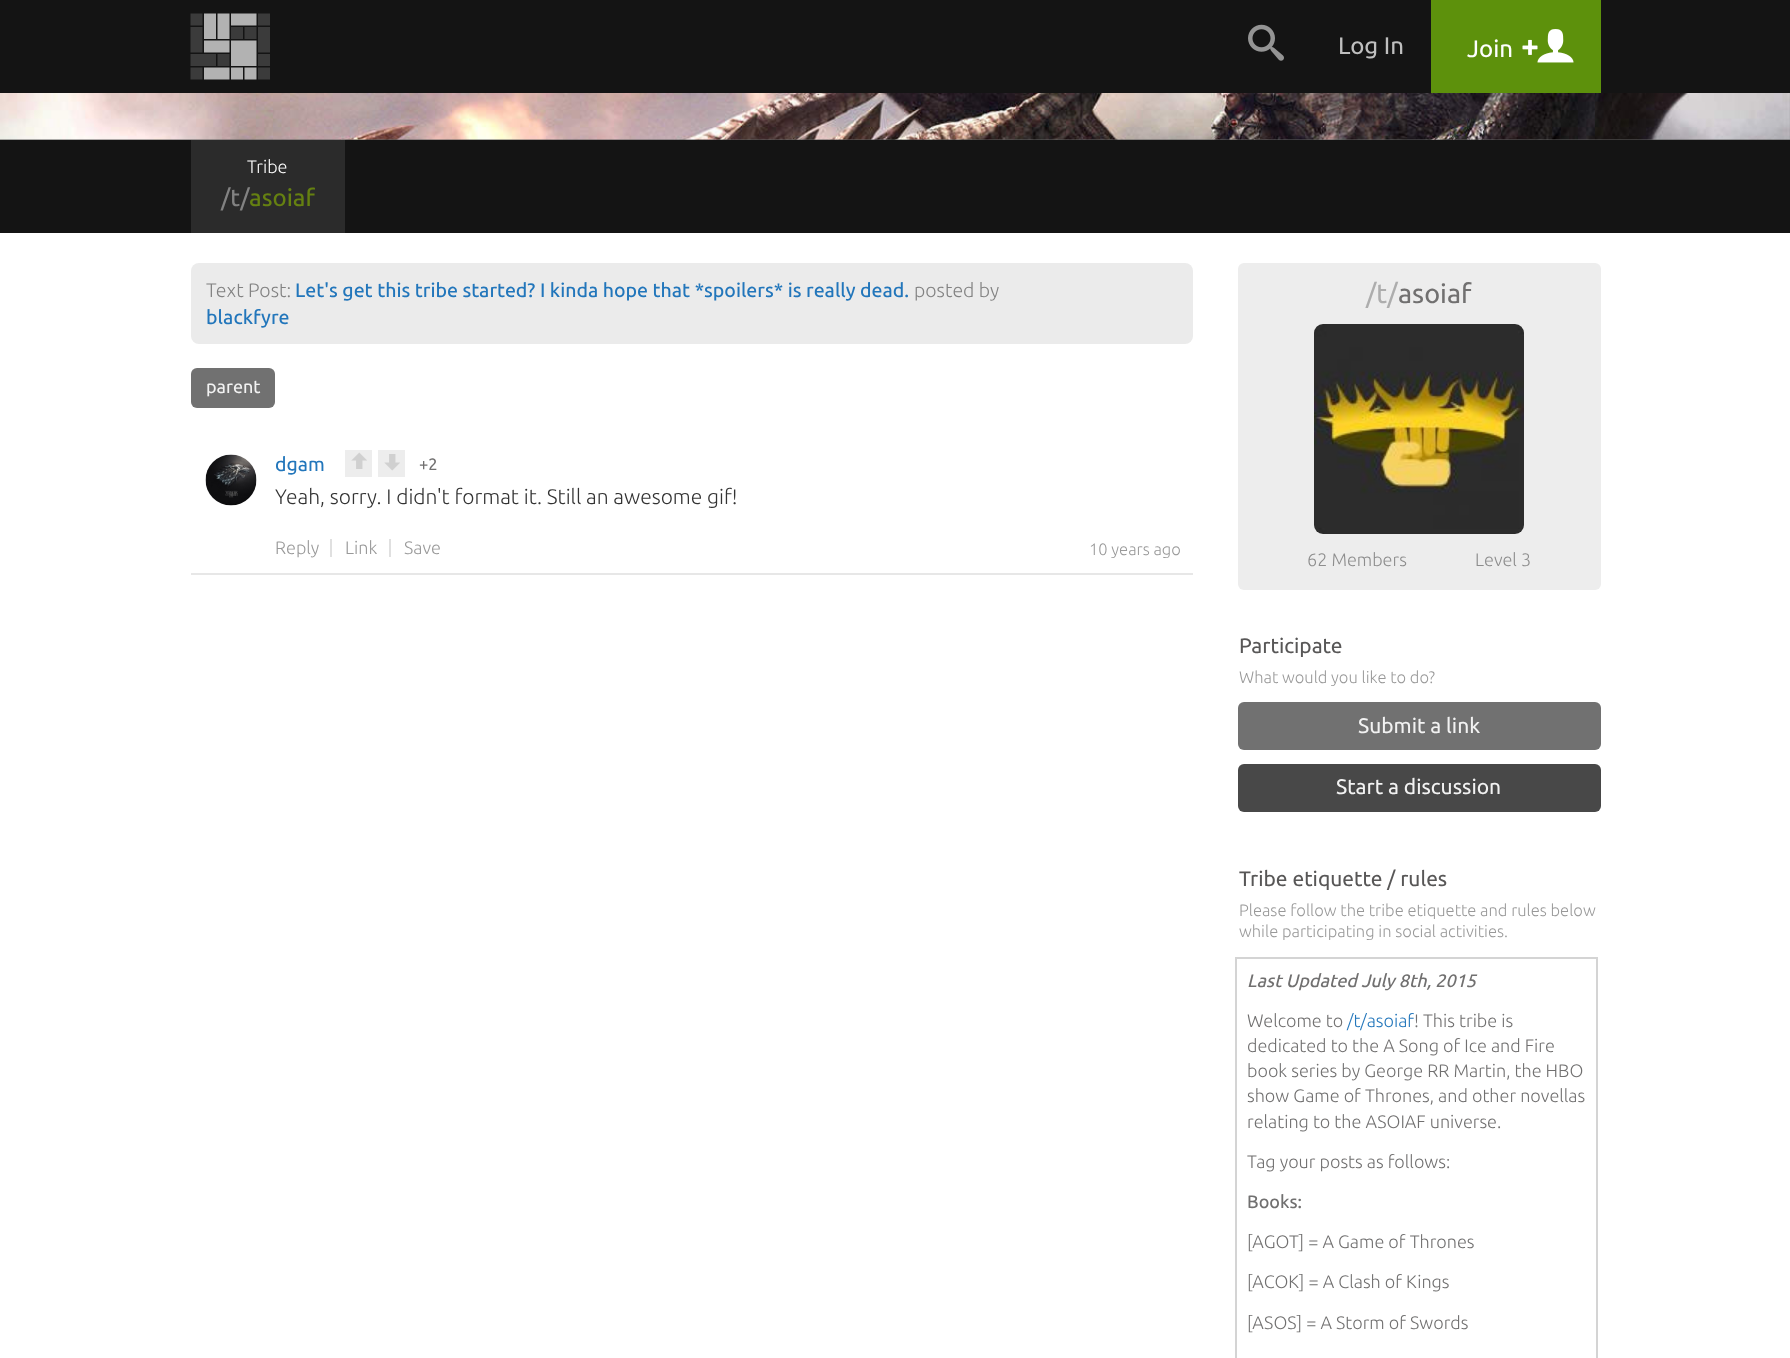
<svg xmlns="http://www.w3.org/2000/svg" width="1790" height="1358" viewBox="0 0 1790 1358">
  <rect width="100%" height="100%" fill="#ffffff"/>
  <rect x="0" y="0" width="1790" height="93" fill="#141414"/>
  <image x="190" y="13" width="80" height="67" href="img1.png"/>
  <image x="1248" y="24" width="36" height="37" href="img2.png"/>
  <text x="1338" y="54" font-family="Ubuntu" font-size="24" fill="#bfbfbf">Log In</text>
  <rect x="1431" y="0" width="170" height="93" fill="#5d910c"/>
  <text x="1467" y="57" font-family="Ubuntu" font-size="24" fill="#ffffff">Join</text>
  <image x="1522" y="39" width="16" height="16" href="img3.png"/>
  <image x="1537" y="29" width="37" height="34" href="img4.png"/>
  <rect x="0" y="139" width="1790" height="1" fill="#616161"/>
  <image x="0" y="93" width="1790" height="47" href="img5.png"/>
  <rect x="0" y="140" width="1790" height="93" fill="#141414"/>
  <rect x="191" y="140" width="154" height="93" fill="#2b2b2b"/>
  <text x="247" y="173" font-family="Ubuntu" font-size="18" font-weight="300" fill="#ffffff">Tribe</text>
  <text x="221" y="206" font-family="Ubuntu" font-size="24" font-weight="500" fill="#828282">/t/</text>
  <text x="249" y="206" font-family="Ubuntu" font-size="24" font-weight="500" fill="#658011">asoiaf</text>
  <rect x="191" y="263" width="1002" height="81" rx="8" fill="#ebebeb"/>
  <text x="206" y="297" font-family="Ubuntu" font-size="19.5" font-weight="300" fill="#828282">Text Post:</text>
  <text x="295" y="297" font-family="Ubuntu" font-size="19.5" font-weight="500" fill="#2276bb">Let's get this tribe started? I kinda hope that *spoilers* is really dead.</text>
  <text x="914" y="297" font-family="Ubuntu" font-size="19.5" font-weight="300" fill="#828282">posted by</text>
  <text x="206" y="324" font-family="Ubuntu" font-size="19.5" font-weight="500" fill="#2276bb">blackfyre</text>
  <rect x="191" y="368" width="84" height="40" rx="6" fill="#717171"/>
  <text x="206" y="393" font-family="Ubuntu" font-size="18" fill="#f2f2f2">parent</text>
  <rect x="191" y="573" width="1002" height="2" fill="#e7e7e7"/>
  <image x="205" y="454" width="52" height="52" href="img6.png"/>
  <text x="275" y="471" font-family="Ubuntu" font-size="19.5" fill="#2276bb">dgam</text>
  <rect x="345" y="450" width="27" height="27" fill="#ededed"/>
  <image x="351" y="452" width="16" height="17" href="img7.png"/>
  <rect x="378" y="450" width="27" height="27" fill="#ededed"/>
  <image x="384" y="454" width="16" height="17" href="img8.png"/>
  <text x="419" y="470" font-family="Ubuntu" font-size="16.5" fill="#717070">+2</text>
  <text x="275" y="504" font-family="Ubuntu" font-size="21" font-weight="300" fill="#333333">Yeah, sorry. I didn't format it. Still an awesome gif!</text>
  <rect x="330" y="539" width="2" height="18" fill="#e0e0e0"/>
  <text x="275" y="554" font-family="Ubuntu" font-size="18" font-weight="300" fill="#999999">Reply</text>
  <rect x="389" y="539" width="2" height="18" fill="#e0e0e0"/>
  <text x="345" y="554" font-family="Ubuntu" font-size="18" font-weight="300" fill="#999999">Link</text>
  <text x="404" y="554" font-family="Ubuntu" font-size="18" font-weight="300" fill="#999999">Save</text>
  <text x="1089" y="555" font-family="Ubuntu" font-size="16.5" font-weight="300" fill="#999999">10 years ago</text>
  <rect x="1238" y="263" width="363" height="327" rx="6" fill="#ededed"/>
  <text x="1366" y="303" font-family="Ubuntu" font-size="27" fill="#adadad">/t/</text>
  <text x="1398" y="303" font-family="Ubuntu" font-size="27" fill="#717070">asoiaf</text>
  <image x="1314" y="324" width="210" height="210" href="img9.png"/>
  <text x="1307" y="566" font-family="Ubuntu" font-size="18" font-weight="300" fill="#8d8d8d">62 Members</text>
  <text x="1475" y="566" font-family="Ubuntu" font-size="18" font-weight="300" fill="#8d8d8d">Level 3</text>
  <text x="1239" y="653" font-family="Ubuntu" font-size="21" fill="#585757">Participate</text>
  <text x="1239" y="683" font-family="Ubuntu" font-size="16.5" font-weight="300" fill="#999999">What would you like to do?</text>
  <rect x="1238" y="702" width="363" height="48" rx="6" fill="#717171"/>
  <text x="1358" y="733" font-family="Ubuntu" font-size="21" fill="#f2f2f2">Submit a link</text>
  <rect x="1238" y="764" width="363" height="48" rx="6" fill="#484848"/>
  <text x="1336" y="794" font-family="Ubuntu" font-size="21" fill="#f2f2f2">Start a discussion</text>
  <text x="1239" y="886" font-family="Ubuntu" font-size="21" fill="#585757">Tribe etiquette / rules</text>
  <text x="1239" y="916" font-family="Ubuntu" font-size="16.5" font-weight="300" fill="#999999">Please follow the tribe etiquette and rules below</text>
  <text x="1239" y="937" font-family="Ubuntu" font-size="16.5" font-weight="300" fill="#999999">while participating in social activities.</text>
  <rect x="1236" y="958" width="361" height="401" fill="none" stroke="#d4d4d4" stroke-width="2"/>
  <text x="1247" y="987" font-family="Ubuntu" font-size="18" font-weight="500" font-style="italic" fill="#717070">Last Updated July 8th, 2015</text>
  <text x="1247" y="1027" font-family="Ubuntu" font-size="18" font-weight="300" fill="#717070">Welcome to</text>
  <text x="1347" y="1027" font-family="Ubuntu" font-size="18" font-weight="300" fill="#2276bb">/t/asoiaf</text>
  <text x="1414" y="1027" font-family="Ubuntu" font-size="18" font-weight="300" fill="#717070">! This tribe is</text>
  <text x="1247" y="1052" font-family="Ubuntu" font-size="18" font-weight="300" fill="#717070">dedicated to the A Song of Ice and Fire</text>
  <text x="1247" y="1077" font-family="Ubuntu" font-size="18" font-weight="300" fill="#717070">book series by George RR Martin, the HBO</text>
  <text x="1247" y="1102" font-family="Ubuntu" font-size="18" font-weight="300" fill="#717070">show Game of Thrones, and other novellas</text>
  <text x="1247" y="1128" font-family="Ubuntu" font-size="18" font-weight="300" fill="#717070">relating to the ASOIAF universe.</text>
  <text x="1247" y="1168" font-family="Ubuntu" font-size="18" font-weight="300" fill="#717070">Tag your posts as follows:</text>
  <text x="1247" y="1208" font-family="Ubuntu" font-size="18" font-weight="500" fill="#717070">Books:</text>
  <text x="1247" y="1248" font-family="Ubuntu" font-size="18" font-weight="300" fill="#717070">[AGOT] = A Game of Thrones</text>
  <text x="1247" y="1288" font-family="Ubuntu" font-size="18" font-weight="300" fill="#717070">[ACOK] = A Clash of Kings</text>
  <text x="1247" y="1329" font-family="Ubuntu" font-size="18" font-weight="300" fill="#717070">[ASOS] = A Storm of Swords</text>
</svg>
